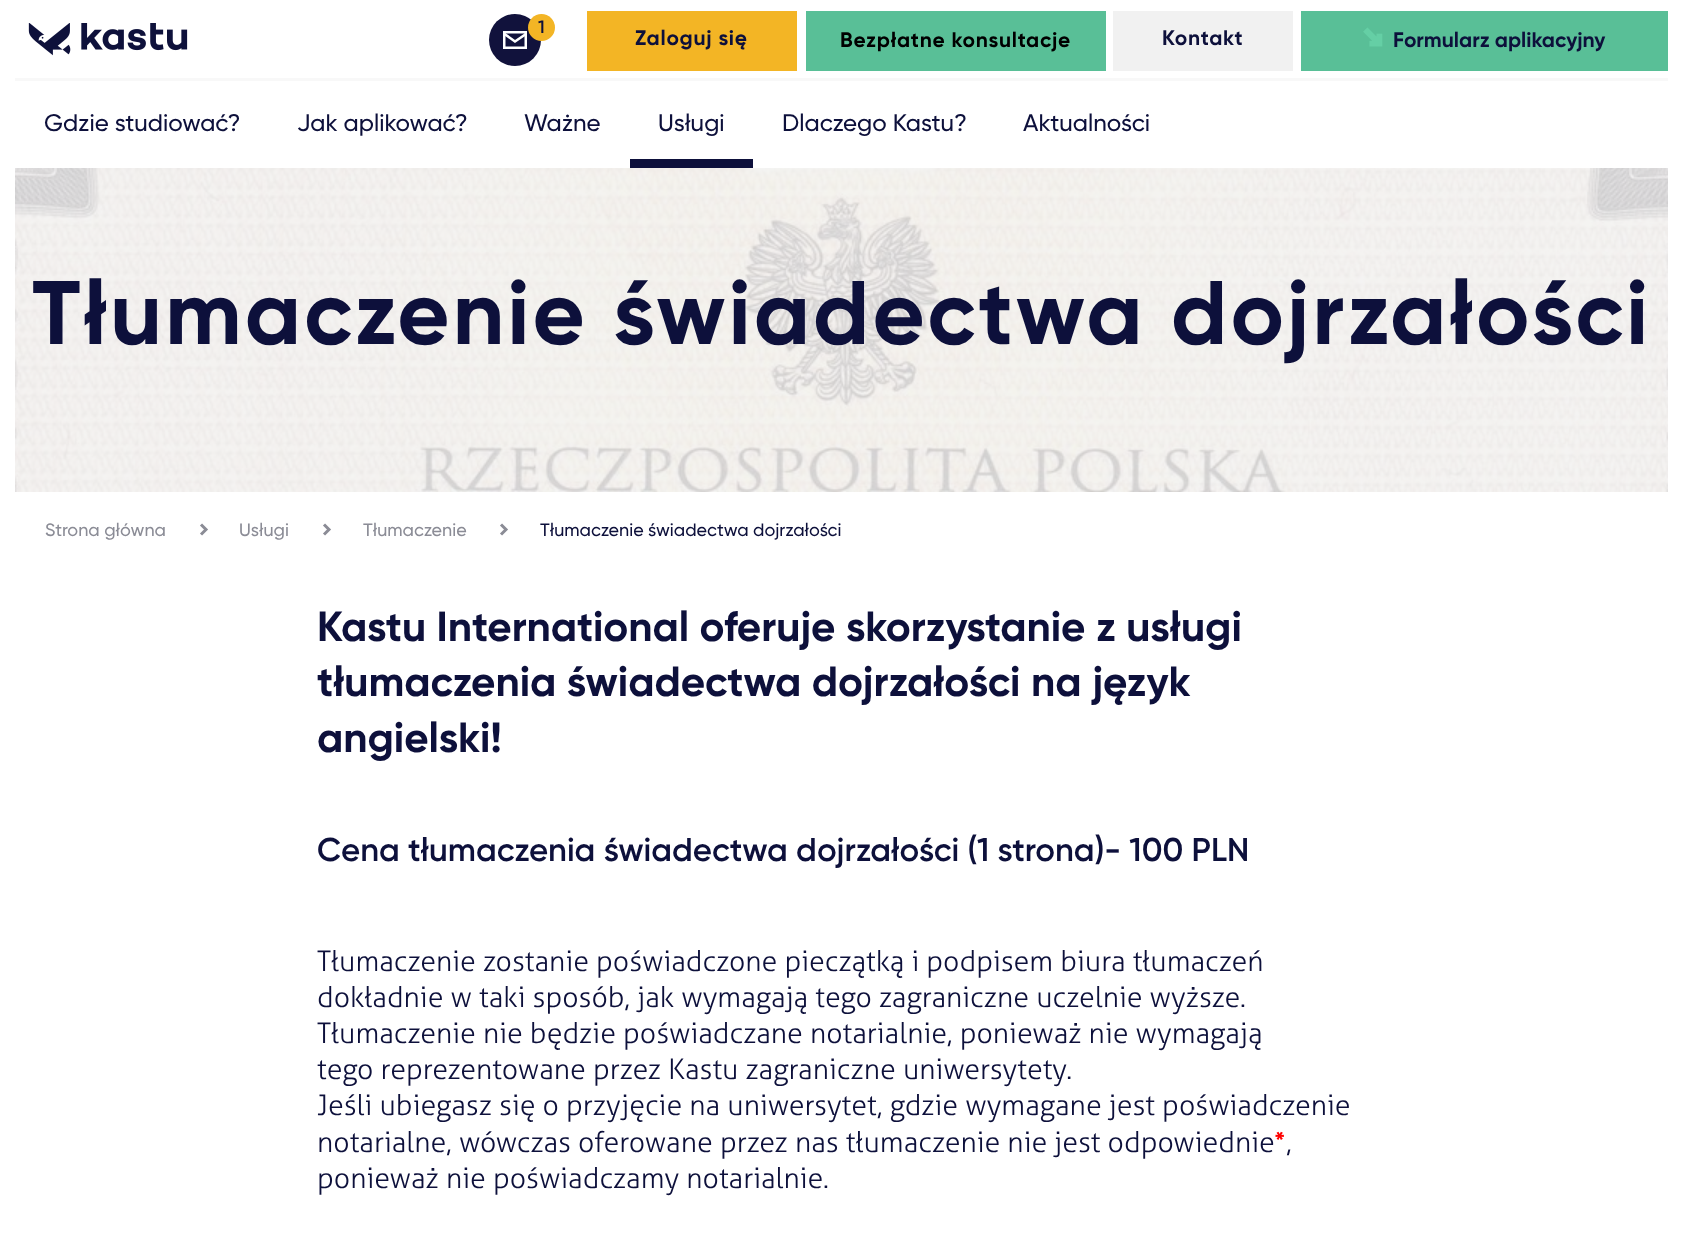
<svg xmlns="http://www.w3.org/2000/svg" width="1682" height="1253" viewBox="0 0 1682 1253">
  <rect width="100%" height="100%" fill="#ffffff"/>
  <circle cx="515" cy="40" r="26" fill="#11123c"/>
  <rect x="504.25" y="32.25" width="21.5" height="15.5" fill="none" stroke="#ffffff" stroke-width="2.5"/>
  <path d="M504.5 34L515 41.5L526 34" fill="none" stroke="#ffffff" stroke-width="2.6"/>
  <circle cx="541.5" cy="27.5" r="13.5" fill="#f3b525"/>
  <text x="538" y="33" font-family="Gilroy" font-size="18" font-weight="600" fill="#0d103b">1</text>
  <rect x="587" y="11" width="210" height="60" fill="#f3b525"/>
  <text x="635" y="45" font-family="Gilroy" font-size="21" font-weight="bold" letter-spacing="0.75" fill="#0d103b">Zaloguj się</text>
  <rect x="806" y="11" width="300" height="60" fill="#59bf97"/>
  <text x="840" y="47" font-family="Gilroy" font-size="21" font-weight="bold" letter-spacing="0.75" fill="#000000">Bezpłatne konsultacje</text>
  <rect x="1113" y="11" width="180" height="60" fill="#f1f1f1"/>
  <text x="1162" y="45" font-family="Gilroy" font-size="21" font-weight="bold" letter-spacing="0.75" fill="#0d103b">Kontakt</text>
  <rect x="1301" y="11" width="367" height="60" fill="#59bf97"/>
  <image x="1363" y="27" width="20" height="20" href="img1.png"/>
  <text x="1393" y="47" font-family="Gilroy" font-size="21" font-weight="bold" fill="#0d103b">Formularz aplikacyjny</text>
  <rect x="15" y="78" width="1653" height="3" fill="#f8f8f8"/>
  <text x="44" y="131" font-family="Gilroy" font-size="24" font-weight="500" fill="#0d103b">Gdzie studiować?</text>
  <text x="297" y="131" font-family="Gilroy" font-size="24" font-weight="500" fill="#0d103b">Jak aplikować?</text>
  <text x="524" y="131" font-family="Gilroy" font-size="24" font-weight="500" fill="#0d103b">Ważne</text>
  <text x="658" y="131" font-family="Gilroy" font-size="24" font-weight="500" fill="#0d103b">Usługi</text>
  <rect x="630" y="159" width="123" height="9" fill="#0d103b"/>
  <text x="782" y="131" font-family="Gilroy" font-size="24" font-weight="500" fill="#0d103b">Dlaczego Kastu?</text>
  <text x="1023" y="131" font-family="Gilroy" font-size="24" font-weight="500" fill="#0d103b">Aktualności</text>
  <image x="28" y="23" width="160" height="33" href="img2.png"/>
  <image x="15" y="168" width="1653" height="324" href="img3.png"/>
  <text x="32" y="344" font-family="Gilroy" font-size="90" font-weight="bold" letter-spacing="3" fill="#0d103b">Tłumaczenie świadectwa dojrzałości</text>
  <path d="M201 524.5L206 529.5L201 534.5" fill="none" stroke="#8b8c96" stroke-width="3"/>
  <text x="45" y="536" font-family="Gilroy" font-size="18" font-weight="500" fill="#8b8c96">Strona główna</text>
  <path d="M324 524.5L329 529.5L324 534.5" fill="none" stroke="#8b8c96" stroke-width="3"/>
  <text x="239" y="536" font-family="Gilroy" font-size="18" font-weight="500" fill="#8b8c96">Usługi</text>
  <path d="M501 524.5L506 529.5L501 534.5" fill="none" stroke="#8b8c96" stroke-width="3"/>
  <text x="363" y="536" font-family="Gilroy" font-size="18" font-weight="500" fill="#8b8c96">Tłumaczenie</text>
  <text x="540" y="536" font-family="Gilroy" font-size="18" font-weight="500" fill="#0d103b">Tłumaczenie świadectwa dojrzałości</text>
  <text x="317" y="641" font-family="Gilroy" font-size="42" font-weight="bold" fill="#0d103b">Kastu International oferuje skorzystanie z usługi</text>
  <text x="317" y="696" font-family="Gilroy" font-size="42" font-weight="bold" fill="#0d103b">tłumaczenia świadectwa dojrzałości na język</text>
  <text x="317" y="752" font-family="Gilroy" font-size="42" font-weight="bold" fill="#0d103b">angielski!</text>
  <text x="317" y="861" font-family="Gilroy" font-size="33" font-weight="600" fill="#0d103b">Cena tłumaczenia świadectwa dojrzałości (1 strona)- 100 PLN</text>
  <text x="317" y="971" font-family="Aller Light" font-size="28.5" font-weight="300" fill="#0d103b">Tłumaczenie zostanie poświadczone pieczątką i podpisem biura tłumaczeń</text>
  <text x="317" y="1007" font-family="Aller Light" font-size="28.5" font-weight="300" fill="#0d103b">dokładnie w taki sposób, jak wymagają tego zagraniczne uczelnie wyższe.</text>
  <text x="317" y="1043" font-family="Aller Light" font-size="28.5" font-weight="300" fill="#0d103b">Tłumaczenie nie będzie poświadczane notarialnie, ponieważ nie wymagają</text>
  <text x="317" y="1079" font-family="Aller Light" font-size="28.5" font-weight="300" fill="#0d103b">tego reprezentowane przez Kastu zagraniczne uniwersytety.</text>
  <text x="317" y="1115" font-family="Aller Light" font-size="28.5" font-weight="300" fill="#0d103b">Jeśli ubiegasz się o przyjęcie na uniwersytet, gdzie wymagane jest poświadczenie</text>
  <text x="317" y="1152" font-family="Aller Light" font-size="28.5" font-weight="300" fill="#0d103b">notarialne, wówczas oferowane przez nas tłumaczenie nie jest odpowiednie</text>
  <text x="1274" y="1152" font-family="Gilroy" font-size="28.5" font-weight="bold" fill="#ff0000">*</text>
  <text x="1286" y="1152" font-family="Aller Light" font-size="28.5" font-weight="300" fill="#0d103b">,</text>
  <text x="317" y="1188" font-family="Aller Light" font-size="28.5" font-weight="300" fill="#0d103b">ponieważ nie poświadczamy notarialnie.</text>
</svg>
